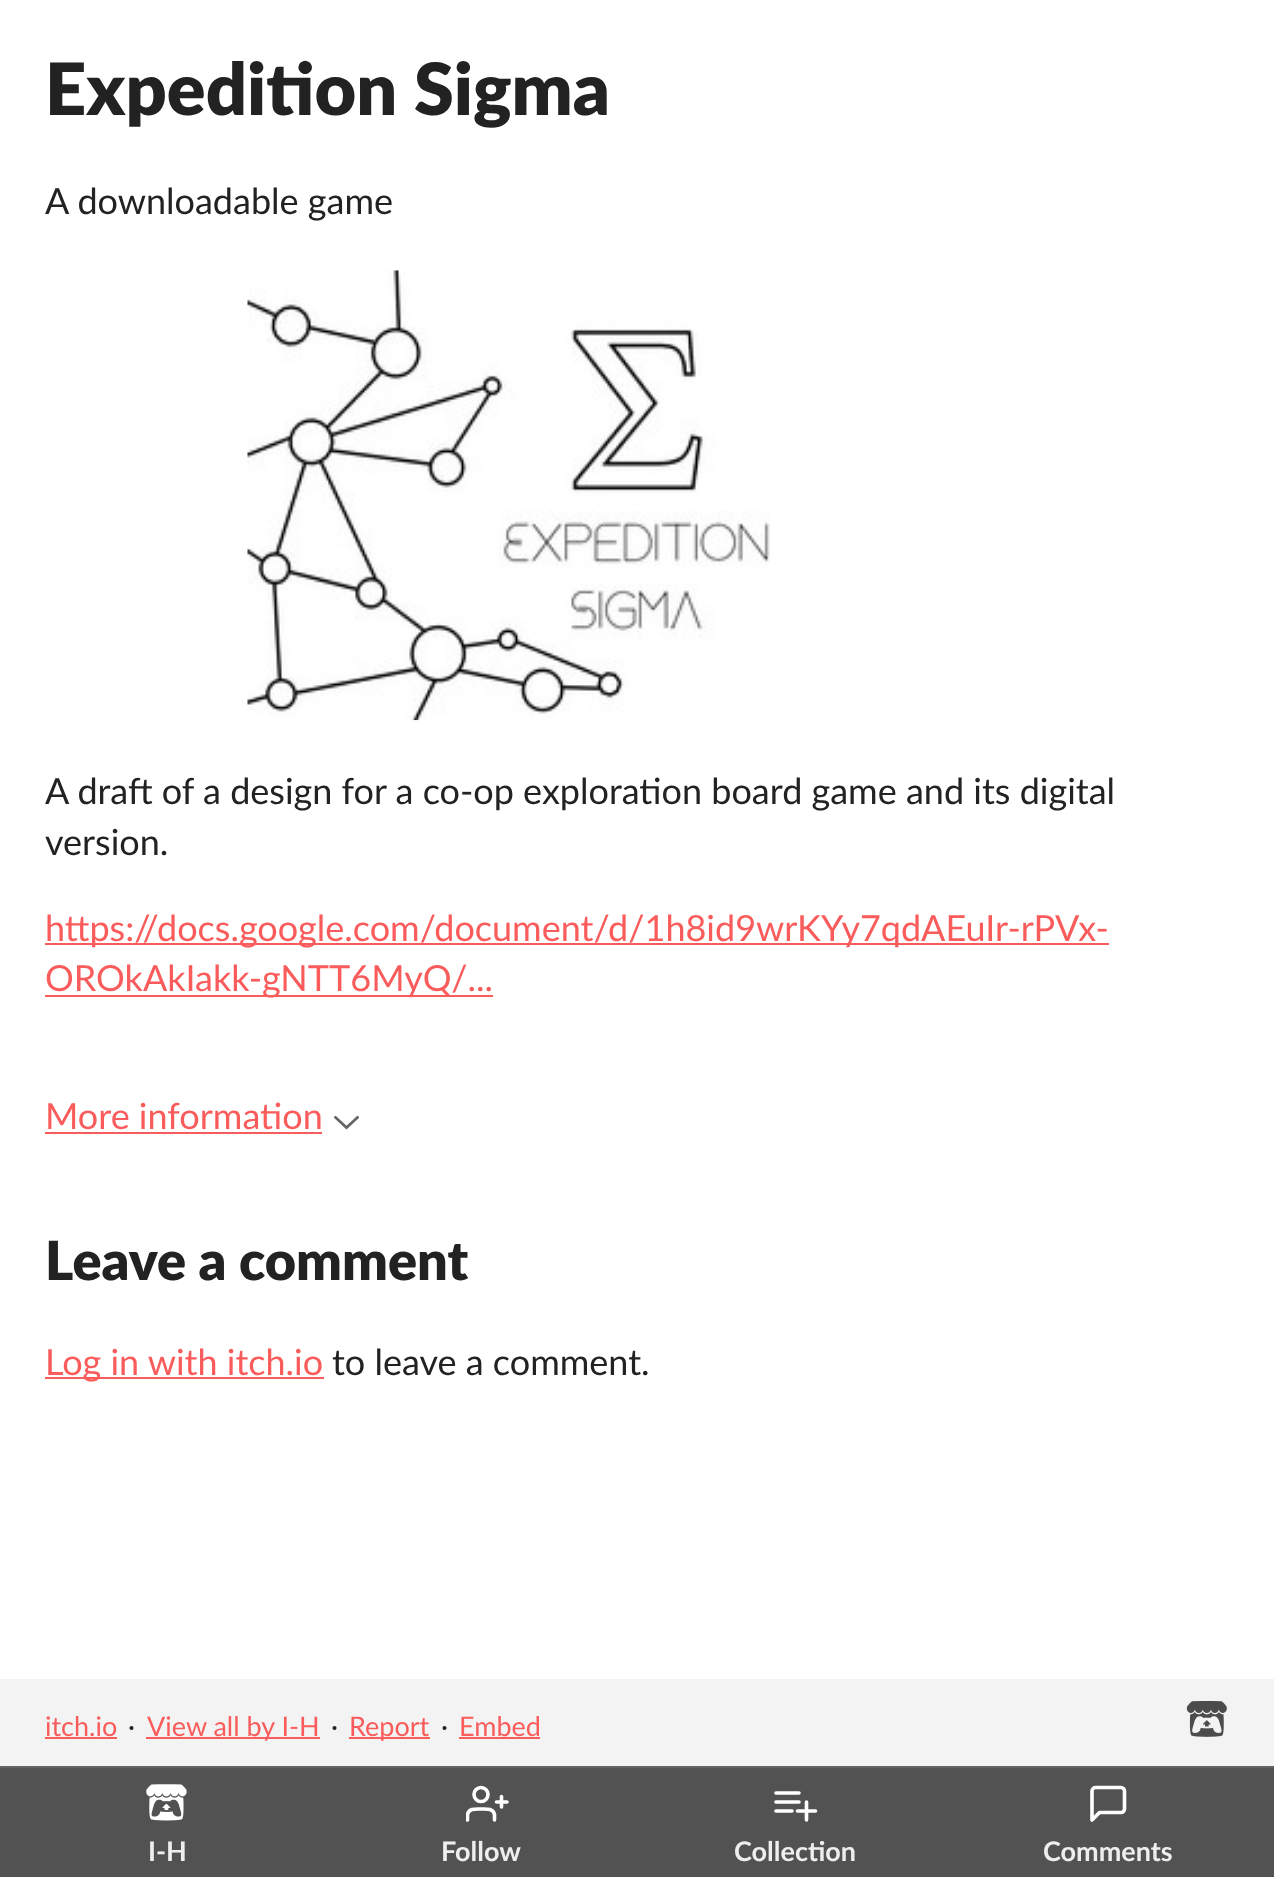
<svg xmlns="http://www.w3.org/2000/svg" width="1274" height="1877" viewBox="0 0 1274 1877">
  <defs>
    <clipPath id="clip1"><rect x="466" y="1782" width="43" height="43"/></clipPath>
  </defs>
  <rect width="100%" height="100%" fill="#ffffff"/>
  <text x="45" y="115" font-family="Lato" font-size="72" font-weight="900" fill="#222222">Expedition Sigma</text>
  <text x="45" y="214" font-family="Lato" font-size="36" fill="#222222">A downloadable game</text>
  <image x="247" y="270" width="523" height="451" href="img1.png"/>
  <text x="45" y="804" font-family="Lato" font-size="36" fill="#222222">A draft of a design for a co-op exploration board game and its digital</text>
  <text x="45" y="855" font-family="Lato" font-size="36" fill="#222222">version.</text>
  <rect x="45" y="943" width="1064" height="2" fill="#fa5c5c"/>
  <text x="45" y="941" font-family="Lato" font-size="36" fill="#fa5c5c">https://docs.google.com/document/d/1h8id9wrKYy7qdAEuIr-rPVx-</text>
  <rect x="45" y="995" width="448" height="2" fill="#fa5c5c"/>
  <text x="45" y="991" font-family="Lato" font-size="36" fill="#fa5c5c">OROkAkIakk-gNTT6MyQ/...</text>
  <text x="45" y="1129" font-family="Lato" font-size="36" fill="#fa5c5c">More information</text>
  <rect x="45" y="1132" width="277" height="2" fill="#fa5c5c"/>
  <image x="334" y="1116" width="25" height="14" href="img2.png"/>
  <text x="45" y="1280" font-family="Lato" font-size="54" font-weight="900" fill="#222222">Leave a comment</text>
  <rect x="45" y="1377" width="279" height="2" fill="#fa5c5c"/>
  <text x="45" y="1375" font-family="Lato" font-size="36" fill="#fa5c5c">Log in with itch.io</text>
  <text x="332" y="1375" font-family="Lato" font-size="36" fill="#222222">to leave a comment.</text>
  <rect x="0" y="1679" width="1274" height="87" fill="#f3f3f3"/>
  <text x="45" y="1736" font-family="Lato" font-size="27" fill="#fa5c5c">itch.io</text>
  <rect x="45" y="1737" width="72" height="2" fill="#fa5c5c"/>
  <text x="128" y="1736" font-family="Lato" font-size="27" fill="#222222">·</text>
  <rect x="146" y="1737" width="174" height="2" fill="#fa5c5c"/>
  <text x="147" y="1736" font-family="Lato" font-size="27" fill="#fa5c5c">View all by I-H</text>
  <text x="331" y="1736" font-family="Lato" font-size="27" fill="#222222">·</text>
  <rect x="349" y="1737" width="81" height="2" fill="#fa5c5c"/>
  <text x="349" y="1736" font-family="Lato" font-size="27" fill="#fa5c5c">Report</text>
  <text x="441" y="1736" font-family="Lato" font-size="27" fill="#222222">·</text>
  <text x="459" y="1736" font-family="Lato" font-size="27" fill="#fa5c5c">Embed</text>
  <rect x="459" y="1737" width="81" height="2" fill="#fa5c5c"/>
  <image x="1186" y="1701" width="41" height="36" href="img3.png"/>
  <rect x="0" y="1768" width="1274" height="109" fill="#525252"/>
  <rect x="0" y="1766" width="1274" height="2" fill="#636363"/>
  <image x="146" y="1784" width="41" height="37" href="img4.png"/>
  <text x="148" y="1861" font-family="Lato" font-size="27" font-weight="bold" fill="#eeeeee">I-H</text>
  <g clip-path="url(#clip1)">
    <path d="M494.5 1820V1814.5C493 1808 486 1809 481 1809C476 1809 469 1808 467.5 1814.5V1820" fill="none" stroke="#ffffff" stroke-width="3.6" stroke-linecap="round" stroke-linejoin="round"/>
  </g>
  <circle cx="481" cy="1794.5" r="7" fill="none" stroke="#ffffff" stroke-width="3.6"/>
  <path d="M501.5 1796.5V1807M507 1802H496.5" fill="none" stroke="#ffffff" stroke-width="3.6" stroke-linecap="round" stroke-linejoin="round"/>
  <text x="441" y="1861" font-family="Lato" font-size="27" font-weight="bold" fill="#eeeeee">Follow</text>
  <path d="M776 1793H799M776 1802H799M776 1811H792M806.5 1802V1820M797.5 1811H815.5" fill="none" stroke="#ffffff" stroke-width="3.6" stroke-linecap="round" stroke-linejoin="round"/>
  <text x="734" y="1861" font-family="Lato" font-size="27" font-weight="bold" fill="#eeeeee">Collection</text>
  <path d="M1124.5 1809C1124.5 1811 1123 1812.5 1121 1812.5H1099.5L1092 1820V1791C1092 1789 1094 1787.5 1095.5 1787.5H1121C1123 1787.5 1124.5 1789 1124.5 1791Z" fill="none" stroke="#ffffff" stroke-width="3.6" stroke-linecap="round" stroke-linejoin="round"/>
  <text x="1043" y="1861" font-family="Lato" font-size="27" font-weight="bold" fill="#eeeeee">Comments</text>
</svg>
